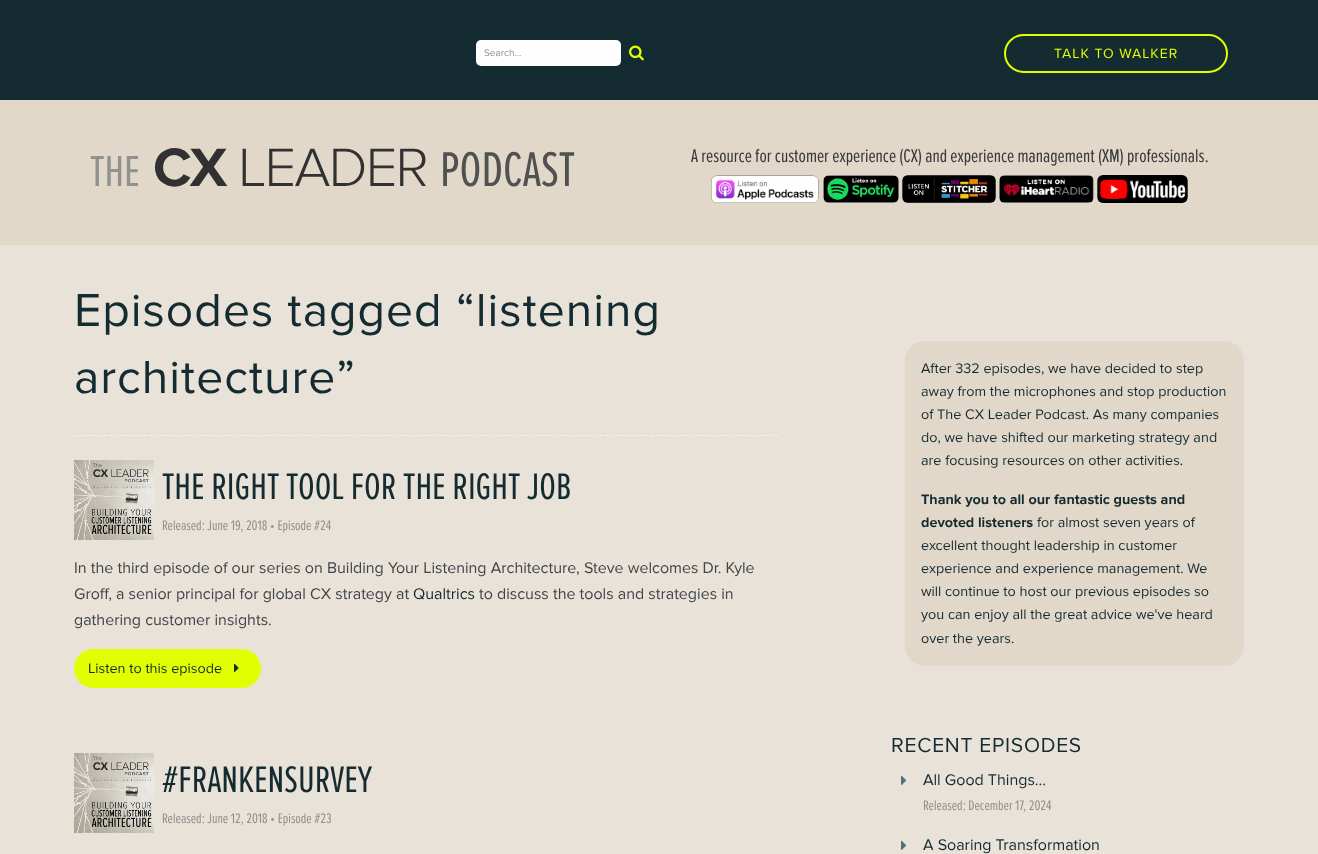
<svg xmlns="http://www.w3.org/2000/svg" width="1318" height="854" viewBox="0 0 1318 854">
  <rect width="100%" height="100%" fill="#142b31"/>
  <rect x="476" y="40" width="145" height="26" rx="5" fill="#fefefe"/>
  <text x="484" y="56" font-family="Proxima Nova" font-size="10" fill="#919191">Search...</text>
  <image x="629" y="45" width="15" height="16" href="img1.png"/>
  <rect x="1005" y="35" width="222" height="37" rx="18.5" fill="none" stroke="#e1ff01" stroke-width="2"/>
  <text x="1054" y="58" font-family="Proxima Nova" font-size="14" letter-spacing="1" fill="#e1ff01">TALK TO WALKER</text>
  <rect x="0" y="245" width="1318" height="609" fill="#e9e2d8"/>
  <rect x="0" y="100" width="1318" height="145" fill="#e1d8ca"/>
  <text x="90" y="186" font-family="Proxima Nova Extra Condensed" font-size="45" fill="#919191">THE</text>
  <text x="153" y="186" font-family="Proxima Nova" font-size="56" font-weight="bold" letter-spacing="-1.75" fill="#313131">CX</text>
  <text x="238" y="186" font-family="Proxima Nova" font-size="56" font-weight="300" letter-spacing="-1.75" fill="#313131">LEADER</text>
  <text x="440" y="186" font-family="Proxima Nova Extra Condensed" font-size="50.5" fill="#515151">PODCAST</text>
  <text x="691" y="162" font-family="Proxima Nova Extra Condensed" font-size="19.2" fill="#393939">A resource for customer experience (CX) and experience management (XM) professionals.</text>
  <image x="711" y="175" width="108" height="28" href="img2.png"/>
  <image x="823" y="175" width="76" height="28" href="img3.png"/>
  <image x="902" y="175" width="94" height="28" href="img4.png"/>
  <image x="999" y="175" width="95" height="28" href="img5.png"/>
  <image x="1097" y="175" width="91" height="28" href="img6.png"/>
  <path d="M74 435.5H779" fill="none" stroke="#f3f2f1" stroke-dasharray="3 2.01"/>
  <text x="74" y="326" font-family="Proxima Nova" font-size="48" letter-spacing="1" fill="#142b31">Episodes tagged “listening</text>
  <text x="74" y="393" font-family="Proxima Nova" font-size="48" letter-spacing="1" fill="#142b31">architecture”</text>
  <path d="M74 720.5H779" fill="none" stroke="#e3e2e1" stroke-dasharray="3 2.01"/>
  <image x="74" y="460" width="80" height="80" href="img7.png"/>
  <text x="162" y="499" font-family="Proxima Nova Extra Condensed" font-size="38.4" fill="#142b31">THE RIGHT TOOL FOR THE RIGHT JOB</text>
  <text x="162" y="530" font-family="Proxima Nova Extra Condensed" font-size="14.4" fill="#919191">Released: June 19, 2018 • Episode #24</text>
  <text x="74" y="573" font-family="Proxima Nova" font-size="16" fill="#40454a">In the third episode of our series on Building Your Listening Architecture, Steve welcomes Dr. Kyle</text>
  <text x="74" y="599" font-family="Proxima Nova" font-size="16" fill="#40454a">Groff, a senior principal for global CX strategy at</text>
  <text x="413" y="599" font-family="Proxima Nova" font-size="16" fill="#142b31">Qualtrics</text>
  <text x="479" y="599" font-family="Proxima Nova" font-size="16" fill="#40454a">to discuss the tools and strategies in</text>
  <text x="74" y="625" font-family="Proxima Nova" font-size="16" fill="#40454a">gathering customer insights.</text>
  <rect x="74" y="649" width="187" height="39" rx="19.5" fill="#e1ff01"/>
  <text x="88" y="673" font-family="Proxima Nova" font-size="14.4" fill="#142b31">Listen to this episode</text>
  <image x="234" y="663" width="5" height="9" href="img8.png"/>
  <image x="74" y="753" width="80" height="80" href="img7.png"/>
  <text x="162" y="792" font-family="Proxima Nova Extra Condensed" font-size="38.4" fill="#142b31">#FRANKENSURVEY</text>
  <text x="162" y="823" font-family="Proxima Nova Extra Condensed" font-size="14.4" fill="#919191">Released: June 12, 2018 • Episode #23</text>
  <path d="M891 698.5H1244" fill="none" stroke="#e3e2e1" stroke-dasharray="3 2"/>
  <rect x="905" y="341" width="339" height="325" rx="20" fill="#e1d8ca"/>
  <text x="921" y="373" font-family="Proxima Nova" font-size="14.4" fill="#142b31">After 332 episodes, we have decided to step</text>
  <text x="921" y="396" font-family="Proxima Nova" font-size="14.4" fill="#142b31">away from the microphones and stop production</text>
  <text x="921" y="419" font-family="Proxima Nova" font-size="14.4" fill="#142b31">of The CX Leader Podcast. As many companies</text>
  <text x="921" y="442" font-family="Proxima Nova" font-size="14.4" fill="#142b31">do, we have shifted our marketing strategy and</text>
  <text x="921" y="465" font-family="Proxima Nova" font-size="14.4" fill="#142b31">are focusing resources on other activities.</text>
  <text x="921" y="504" font-family="Proxima Nova" font-size="14.4" font-weight="bold" fill="#142b31">Thank you to all our fantastic guests and</text>
  <text x="921" y="527" font-family="Proxima Nova" font-size="14.4" font-weight="bold" fill="#142b31">devoted listeners</text>
  <text x="1037" y="527" font-family="Proxima Nova" font-size="14.4" fill="#142b31">for almost seven years of</text>
  <text x="921" y="550" font-family="Proxima Nova" font-size="14.4" fill="#142b31">excellent thought leadership in customer</text>
  <text x="921" y="573" font-family="Proxima Nova" font-size="14.4" fill="#142b31">experience and experience management. We</text>
  <text x="921" y="596" font-family="Proxima Nova" font-size="14.4" fill="#142b31">will continue to host our previous episodes so</text>
  <text x="921" y="619" font-family="Proxima Nova" font-size="14.4" fill="#142b31">you can enjoy all the great advice we've heard</text>
  <text x="921" y="643" font-family="Proxima Nova" font-size="14.4" fill="#142b31">over the years.</text>
  <text x="891" y="752" font-family="Proxima Nova" font-size="21" letter-spacing="0.75" fill="#142b31">RECENT EPISODES</text>
  <image x="901" y="775" width="6" height="10" href="img9.png"/>
  <text x="923" y="785" font-family="Proxima Nova" font-size="16" fill="#142b31">All Good Things...</text>
  <text x="923" y="810" font-family="Proxima Nova Extra Condensed" font-size="14.4" fill="#919191">Released: December 17, 2024</text>
  <image x="901" y="840" width="6" height="10" href="img9.png"/>
  <text x="923" y="850" font-family="Proxima Nova" font-size="16" fill="#142b31">A Soaring Transformation</text>
</svg>
